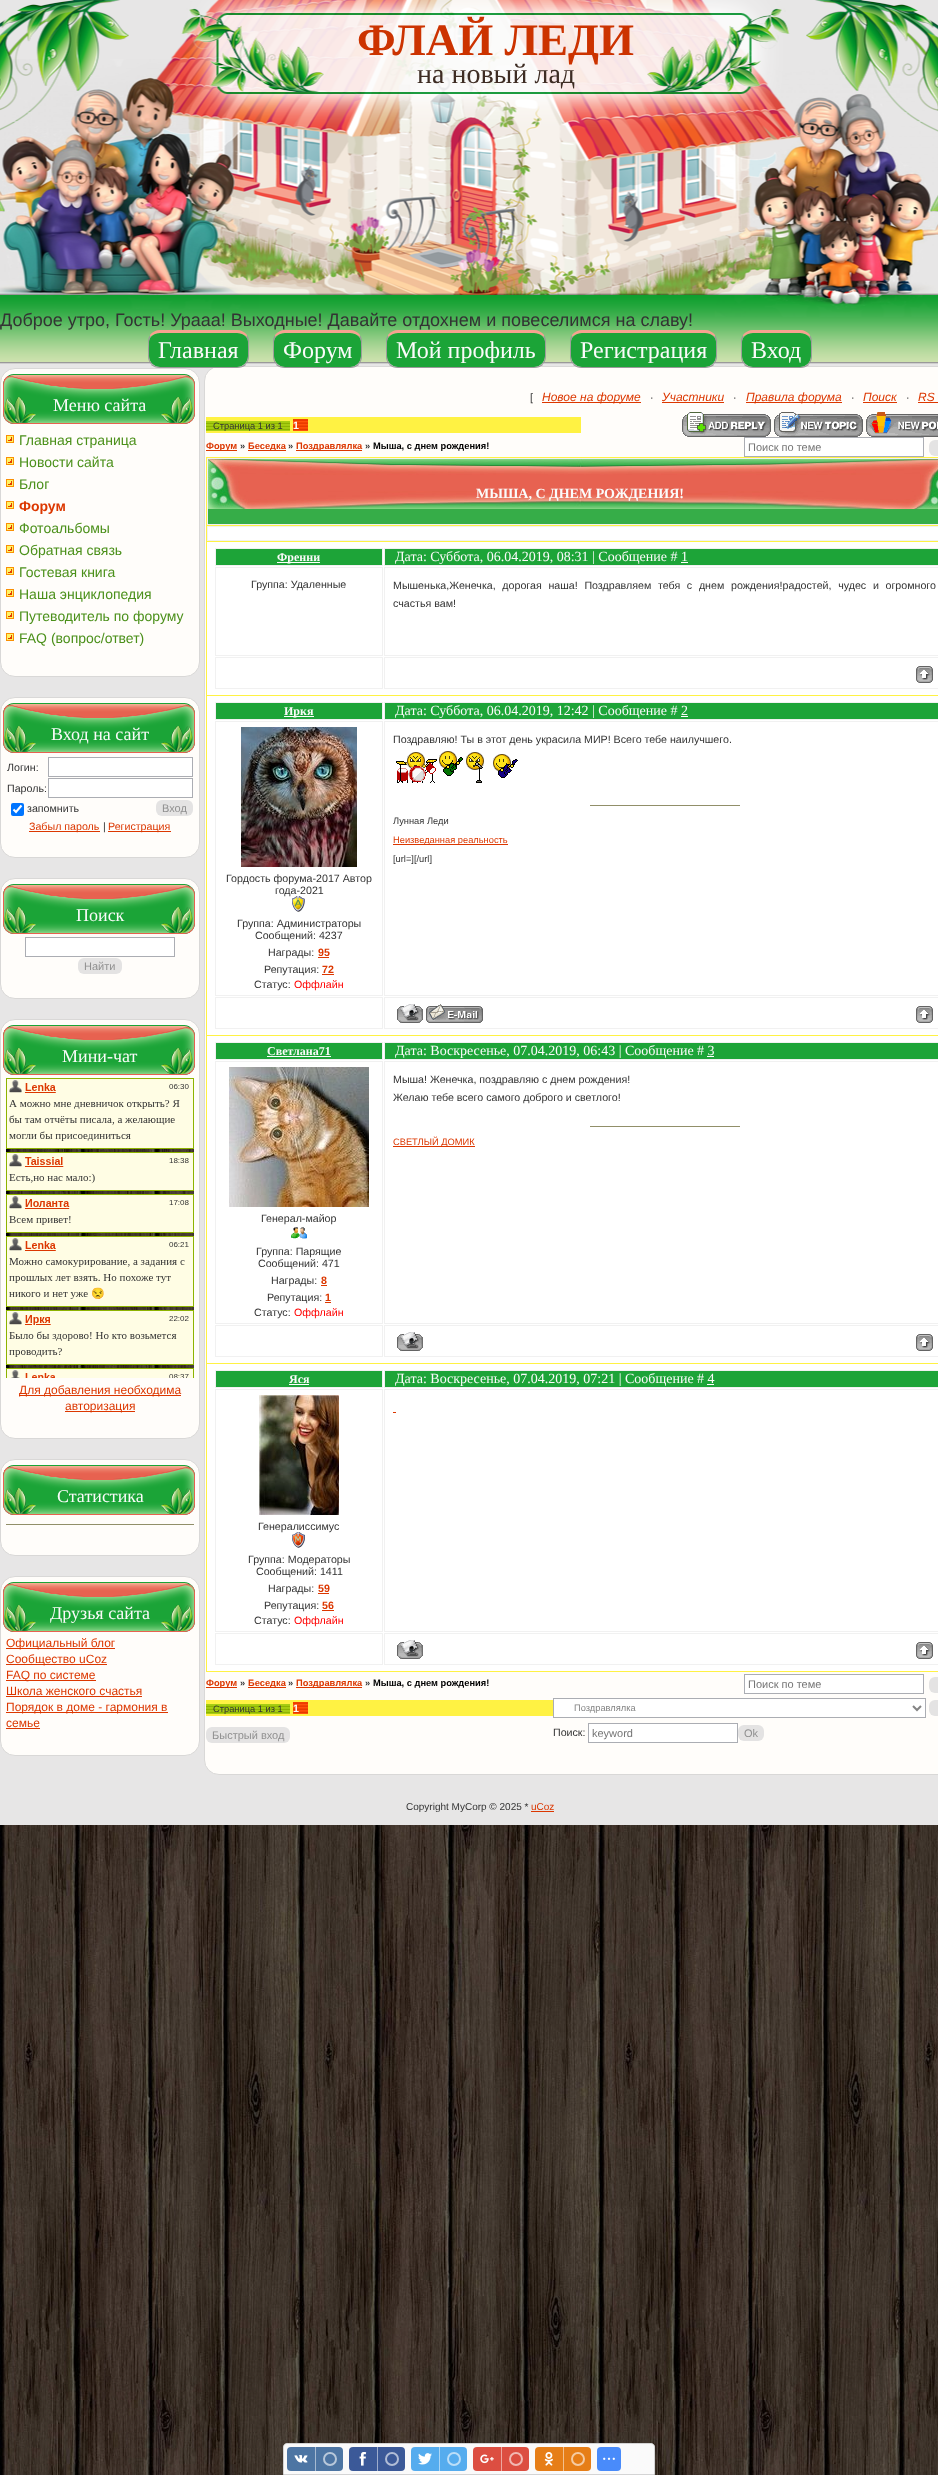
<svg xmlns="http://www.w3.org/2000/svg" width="938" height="2475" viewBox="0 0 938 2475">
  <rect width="100%" height="100%" fill="#ffffff"/>
  <image x="0" y="1825" width="938" height="650" href="img1.png"/>
  <rect x="0" y="364" width="938" height="1461" fill="#e7e6e6"/>
  <image x="0" y="0" width="938" height="364" href="img2.png"/>
  <text x="357" y="55" font-family="Liberation Serif" font-size="45" font-weight="bold" fill="#cc3300">ФЛАЙ ЛЕДИ</text>
  <text x="417" y="83" font-family="Liberation Serif" font-size="28" fill="#3d2c23">на новый лад</text>
  <text x="0" y="326" font-family="Liberation Sans" font-size="18" fill="#333333">Доброе утро, Гость! Урааа! Выходные! Давайте отдохнем и повеселимся на славу!</text>
  <rect x="204.5" y="366.5" width="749" height="1408" rx="14.5" fill="#fffdfa" stroke="#d9d8d7"/>
  <path d="M160 333H237C243 333 248 337 248 342V356C248 362 243 367 237 367H160C154 367 149 362 149 356V342C149 337 154 333 160 333Z" fill="#1ba437"/>
  <text x="158" y="358" font-family="Liberation Serif" font-size="24" fill="#fbfbfa">Главная</text>
  <path d="M160 330C156 330 152 332 150 335V337C152 335 156 333 160 333H237C241 333 245 335 247 337V335C245 332 241 330 237 330Z" fill="#f7a28f"/>
  <path d="M249 356V342C249 339.5 248.5 337 247 335.5L246.5 337.5C249 341 248 345 248 349C248 354 249 359.5 245 364L245.5 364.5C248 362.5 249 359.5 249 356Z" fill="#9a9999"/>
  <path d="M160 368H237C240 368 244 367 246 365L245 364C243 366 240 367 237 367H160C157 367 154 366 152 364L151 365C154 367 156 368 160 368Z" fill="#9a9999"/>
  <path d="M148 342V356C148 359.5 149 362.5 151.5 364.5L152 364C148 359.5 149 354 149 349C149 345 148 341 150.5 337.5L150 335.5C148.5 337 148 339.5 148 342Z" fill="#9a9999"/>
  <path d="M285 333H350C356 333 361 337 361 342V356C361 362 356 367 350 367H285C279 367 274 362 274 356V342C274 337 279 333 285 333Z" fill="#1ba437"/>
  <text x="283" y="358" font-family="Liberation Serif" font-size="24" fill="#fbfbfa">Форум</text>
  <path d="M285 330C281 330 277 332 275 335V337C277 335 281 333 285 333H350C354 333 358 335 360 337V335C358 332 354 330 350 330Z" fill="#f7a28f"/>
  <path d="M362 356V342C362 339.5 361.5 337 360 335.5L359.5 337.5C362 341 361 345 361 349C361 354 362 359.5 358 364L358.5 364.5C361 362.5 362 359.5 362 356Z" fill="#9a9999"/>
  <path d="M285 368H350C354 368 356 367 359 365L358 364C356 366 353 367 350 367H285C282 367 279 366 277 364L276 365C278 367 282 368 285 368Z" fill="#9a9999"/>
  <path d="M273 342V356C273 359.5 274 362.5 276.5 364.5L277 364C273 359.5 274 354 274 349C274 345 273 341 275.5 337.5L275 335.5C273.5 337 273 339.5 273 342Z" fill="#9a9999"/>
  <path d="M398 333H534C540 333 545 337 545 342V356C545 362 540 367 534 367H398C392 367 387 362 387 356V342C387 337 392 333 398 333Z" fill="#1ba437"/>
  <text x="396" y="358" font-family="Liberation Serif" font-size="24" fill="#fbfbfa">Мой профиль</text>
  <path d="M398 330C394 330 390 332 388 335V337C390 335 394 333 398 333H534C538 333 542 335 544 337V335C542 332 538 330 534 330Z" fill="#f7a28f"/>
  <path d="M546 356V342C546 339.5 545.5 337 544 335.5L543.5 337.5C546 341 545 345 545 349C545 354 546 359.5 542 364L542.5 364.5C545 362.5 546 359.5 546 356Z" fill="#9a9999"/>
  <path d="M398 368H534C538 368 540 367 543 365L542 364C540 366 537 367 534 367H398C395 367 392 366 390 364L389 365C392 367 394 368 398 368Z" fill="#9a9999"/>
  <path d="M386 342V356C386 359.5 387 362.5 389.5 364.5L390 364C386 359.5 387 354 387 349C387 345 386 341 388.5 337.5L388 335.5C386.5 337 386 339.5 386 342Z" fill="#9a9999"/>
  <path d="M582 333H705C711 333 716 337 716 342V356C716 362 711 367 705 367H582C576 367 571 362 571 356V342C571 337 576 333 582 333Z" fill="#1ba437"/>
  <text x="580" y="358" font-family="Liberation Serif" font-size="24" fill="#fbfbfa">Регистрация</text>
  <path d="M582 330C578 330 574 332 572 335V337C574 335 578 333 582 333H705C709 333 713 335 715 337V335C713 332 709 330 705 330Z" fill="#f7a28f"/>
  <path d="M717 356V342C717 339.5 716.5 337 715 335.5L714.5 337.5C717 341 716 345 716 349C716 354 717 359.5 713 364L713.5 364.5C716 362.5 717 359.5 717 356Z" fill="#9a9999"/>
  <path d="M582 368H705C708 368 712 367 714 365L713 364C711 366 708 367 705 367H582C579 367 576 366 574 364L573 365C576 367 578 368 582 368Z" fill="#9a9999"/>
  <path d="M570 342V356C570 359.5 571 362.5 573.5 364.5L574 364C570 359.5 571 354 571 349C571 345 570 341 572.5 337.5L572 335.5C570.5 337 570 339.5 570 342Z" fill="#9a9999"/>
  <path d="M753 333H800C806 333 811 337 811 342V356C811 362 806 367 800 367H753C747 367 742 362 742 356V342C742 337 747 333 753 333Z" fill="#1ba437"/>
  <text x="751" y="358" font-family="Liberation Serif" font-size="24" fill="#fbfbfa">Вход</text>
  <path d="M753 330C749 330 745 332 743 335V337C745 335 749 333 753 333H800C804 333 808 335 810 337V335C808 332 804 330 800 330Z" fill="#f7a28f"/>
  <path d="M812 356V342C812 339.5 811.5 337 810 335.5L809.5 337.5C812 341 811 345 811 349C811 354 812 359.5 808 364L808.5 364.5C811 362.5 812 359.5 812 356Z" fill="#9a9999"/>
  <path d="M753 368H800C804 368 806 367 809 365L808 364C806 366 803 367 800 367H753C750 367 747 366 745 364L744 365C746 367 750 368 753 368Z" fill="#9a9999"/>
  <path d="M741 342V356C741 359.5 742 362.5 744.5 364.5L745 364C741 359.5 742 354 742 349C742 345 741 341 743.5 337.5L743 335.5C741.5 337 741 339.5 741 342Z" fill="#9a9999"/>
  <rect x="0.5" y="368.5" width="199" height="308" rx="14.5" fill="#fffdfa" stroke="#d9d8d7"/>
  <image x="3" y="374" width="192" height="50" href="img3.png"/>
  <text x="53" y="411" font-family="Liberation Serif" font-size="18" fill="#fbfbfa">Меню сайта</text>
  <image x="6" y="435" width="8" height="8" href="img4.png"/>
  <text x="19" y="445" font-family="Liberation Sans" font-size="14" fill="#4b901a">Главная страница</text>
  <image x="6" y="457" width="8" height="8" href="img4.png"/>
  <text x="19" y="467" font-family="Liberation Sans" font-size="14" fill="#4b901a">Новости сайта</text>
  <image x="6" y="479" width="8" height="8" href="img4.png"/>
  <text x="19" y="489" font-family="Liberation Sans" font-size="14" fill="#4b901a">Блог</text>
  <image x="6" y="501" width="8" height="8" href="img4.png"/>
  <text x="19" y="511" font-family="Liberation Sans" font-size="14" font-weight="bold" fill="#dc3700">Форум</text>
  <image x="6" y="523" width="8" height="8" href="img4.png"/>
  <text x="19" y="533" font-family="Liberation Sans" font-size="14" fill="#4b901a">Фотоальбомы</text>
  <image x="6" y="545" width="8" height="8" href="img4.png"/>
  <text x="19" y="555" font-family="Liberation Sans" font-size="14" fill="#4b901a">Обратная связь</text>
  <image x="6" y="567" width="8" height="8" href="img4.png"/>
  <text x="19" y="577" font-family="Liberation Sans" font-size="14" fill="#4b901a">Гостевая книга</text>
  <image x="6" y="589" width="8" height="8" href="img4.png"/>
  <text x="19" y="599" font-family="Liberation Sans" font-size="14" fill="#4b901a">Наша энциклопедия</text>
  <image x="6" y="611" width="8" height="8" href="img4.png"/>
  <text x="19" y="621" font-family="Liberation Sans" font-size="14" fill="#4b901a">Путеводитель по форуму</text>
  <image x="6" y="633" width="8" height="8" href="img4.png"/>
  <text x="19" y="643" font-family="Liberation Sans" font-size="14" fill="#4b901a">FAQ (вопрос/ответ)</text>
  <rect x="0.5" y="697.5" width="199" height="160" rx="14.5" fill="#fffdfa" stroke="#d9d8d7"/>
  <image x="3" y="703" width="192" height="50" href="img3.png"/>
  <text x="51" y="740" font-family="Liberation Serif" font-size="18" fill="#fbfbfa">Вход на сайт</text>
  <text x="7" y="771" font-family="Liberation Sans" font-size="10.67" fill="#333333">Логин:</text>
  <rect x="48.5" y="757.5" width="144" height="19" fill="#ffffff" stroke="#abadb3"/>
  <text x="7" y="792" font-family="Liberation Sans" font-size="10.67" fill="#333333">Пароль:</text>
  <rect x="48.5" y="778.5" width="144" height="19" fill="#ffffff" stroke="#abadb3"/>
  <rect x="11" y="803" width="13" height="13" rx="2" fill="#0075ff"/>
  <path d="M13.5 809.5L16 812L21.5 805.5" fill="none" stroke="#ffffff" stroke-width="2.1"/>
  <text x="27" y="812" font-family="Liberation Sans" font-size="10.67" fill="#333333">запомнить</text>
  <rect x="156" y="800" width="37" height="16" rx="6" fill="#e4e3e3"/>
  <text x="162" y="812" font-family="Liberation Sans" font-size="11" fill="#909090">Вход</text>
  <rect x="29" y="831" width="71" height="1" fill="#dc3700"/>
  <text x="29" y="830" font-family="Liberation Sans" font-size="10.67" fill="#dc3700">Забыл пароль</text>
  <text x="103" y="830" font-family="Liberation Sans" font-size="10.67" fill="#333333">|</text>
  <rect x="108" y="831" width="63" height="1" fill="#dc3700"/>
  <text x="108" y="830" font-family="Liberation Sans" font-size="10.67" fill="#dc3700">Регистрация</text>
  <rect x="0.5" y="878.5" width="199" height="120" rx="14.5" fill="#fffdfa" stroke="#d9d8d7"/>
  <image x="3" y="884" width="192" height="50" href="img3.png"/>
  <text x="76" y="921" font-family="Liberation Serif" font-size="18" fill="#fbfbfa">Поиск</text>
  <rect x="25.5" y="937.5" width="149" height="19" fill="#ffffff" stroke="#abadb3"/>
  <rect x="78" y="958" width="44" height="16" rx="6" fill="#e4e3e3"/>
  <text x="84" y="970" font-family="Liberation Sans" font-size="11" fill="#909090">Найти</text>
  <rect x="0.5" y="1019.5" width="199" height="419" rx="14.5" fill="#fffdfa" stroke="#d9d8d7"/>
  <image x="3" y="1025" width="192" height="50" href="img3.png"/>
  <text x="62" y="1062" font-family="Liberation Serif" font-size="18" fill="#fbfbfa">Мини-чат</text>
  <image x="6" y="1078" width="188" height="300" href="img5.png"/>
  <rect x="19" y="1395" width="162" height="1" fill="#dc3700"/>
  <text x="19" y="1394" font-family="Liberation Sans" font-size="12" fill="#dc3700">Для добавления необходима</text>
  <rect x="65" y="1411" width="70" height="1" fill="#dc3700"/>
  <text x="65" y="1410" font-family="Liberation Sans" font-size="12" fill="#dc3700">авторизация</text>
  <rect x="0.5" y="1459.5" width="199" height="96" rx="14.5" fill="#fffdfa" stroke="#d9d8d7"/>
  <image x="3" y="1465" width="192" height="50" href="img3.png"/>
  <text x="57" y="1502" font-family="Liberation Serif" font-size="18" fill="#fbfbfa">Статистика</text>
  <rect x="6" y="1524" width="188" height="1" fill="#918f69"/>
  <rect x="0.5" y="1576.5" width="199" height="179" rx="14.5" fill="#fffdfa" stroke="#d9d8d7"/>
  <image x="3" y="1582" width="192" height="50" href="img3.png"/>
  <text x="50" y="1619" font-family="Liberation Serif" font-size="18" fill="#fbfbfa">Друзья сайта</text>
  <rect x="6" y="1648" width="109" height="1" fill="#dc3700"/>
  <text x="6" y="1647" font-family="Liberation Sans" font-size="12" fill="#dc3700">Официальный блог</text>
  <rect x="6" y="1664" width="101" height="1" fill="#dc3700"/>
  <text x="6" y="1663" font-family="Liberation Sans" font-size="12" fill="#dc3700">Сообщество uCoz</text>
  <rect x="6" y="1680" width="90" height="1" fill="#dc3700"/>
  <text x="6" y="1679" font-family="Liberation Sans" font-size="12" fill="#dc3700">FAQ по системе</text>
  <text x="6" y="1695" font-family="Liberation Sans" font-size="12" fill="#dc3700">Школа женского счастья</text>
  <rect x="6" y="1696" width="136" height="1" fill="#dc3700"/>
  <rect x="6" y="1712" width="162" height="1" fill="#dc3700"/>
  <text x="6" y="1711" font-family="Liberation Sans" font-size="12" fill="#dc3700">Порядок в доме - гармония в</text>
  <text x="6" y="1727" font-family="Liberation Sans" font-size="12" fill="#dc3700">семье</text>
  <rect x="6" y="1728" width="34" height="1" fill="#dc3700"/>
  <text x="530" y="401" font-family="Liberation Sans" font-size="10.67" fill="#333333">[</text>
  <rect x="542" y="402" width="99" height="1" fill="#dc3700"/>
  <text x="542" y="401" font-family="Liberation Sans" font-size="12" font-style="italic" fill="#dc3700">Новое на форуме</text>
  <text x="650" y="401" font-family="Liberation Sans" font-size="10.67" fill="#333333">·</text>
  <text x="662" y="401" font-family="Liberation Sans" font-size="12" font-style="italic" fill="#dc3700">Участники</text>
  <rect x="662" y="402" width="62" height="1" fill="#dc3700"/>
  <text x="733" y="401" font-family="Liberation Sans" font-size="10.67" fill="#333333">·</text>
  <rect x="746" y="402" width="96" height="1" fill="#dc3700"/>
  <text x="746" y="401" font-family="Liberation Sans" font-size="12" font-style="italic" fill="#dc3700">Правила форума</text>
  <text x="851" y="401" font-family="Liberation Sans" font-size="10.67" fill="#333333">·</text>
  <text x="863" y="401" font-family="Liberation Sans" font-size="12" font-style="italic" fill="#dc3700">Поиск</text>
  <rect x="863" y="402" width="34" height="1" fill="#dc3700"/>
  <text x="906" y="401" font-family="Liberation Sans" font-size="10.67" fill="#333333">·</text>
  <text x="918" y="401" font-family="Liberation Sans" font-size="12" font-style="italic" fill="#dc3700">RS</text>
  <rect x="918" y="402" width="20" height="1" fill="#dc3700"/>
  <rect x="206" y="417" width="375" height="16" fill="#fff243"/>
  <image x="206" y="421" width="84" height="10" href="img6.png"/>
  <text x="213" y="429" font-family="Liberation Sans" font-size="9.3" fill="#333333">Страница 1 из 1</text>
  <image x="293" y="419" width="15" height="12" href="img7.png"/>
  <text x="293" y="429" font-family="Liberation Sans" font-size="10.67" font-weight="bold" fill="#fbfbfa">1</text>
  <image x="682" y="412" width="89" height="25" href="img8.png"/>
  <image x="774" y="412" width="89" height="25" href="img9.png"/>
  <image x="866" y="412" width="72" height="25" href="img10.png"/>
  <rect x="206" y="450" width="31" height="1" fill="#dc3700"/>
  <text x="206" y="449" font-family="Liberation Sans" font-size="9.3" font-weight="bold" fill="#dc3700">Форум</text>
  <text x="240" y="449" font-family="Liberation Sans" font-size="9.3" font-weight="bold" fill="#333333">»</text>
  <rect x="248" y="450" width="38" height="1" fill="#dc3700"/>
  <text x="248" y="449" font-family="Liberation Sans" font-size="9.3" font-weight="bold" fill="#dc3700">Беседка</text>
  <text x="288" y="449" font-family="Liberation Sans" font-size="9.3" font-weight="bold" fill="#333333">»</text>
  <rect x="296" y="450" width="66" height="1" fill="#dc3700"/>
  <text x="296" y="449" font-family="Liberation Sans" font-size="9.3" font-weight="bold" fill="#dc3700">Поздравлялка</text>
  <text x="365" y="449" font-family="Liberation Sans" font-size="9.3" font-weight="bold" fill="#333333">»</text>
  <text x="373" y="449" font-family="Liberation Sans" font-size="9.3" font-weight="bold" fill="#000000">Мыша, с днем рождения!</text>
  <rect x="744.5" y="437.5" width="179" height="19" fill="#ffffff" stroke="#abadb3"/>
  <text x="748" y="451" font-family="Liberation Sans" font-size="11" fill="#757575">Поиск по теме</text>
  <rect x="929" y="440" width="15" height="16" rx="6" fill="#e4e3e3"/>
  <rect x="206" y="457" width="732" height="1215" fill="#fff243"/>
  <rect x="208" y="509" width="730" height="15" fill="#36ad48"/>
  <image x="208" y="459" width="730" height="50" href="img11.png"/>
  <rect x="207.5" y="458.5" width="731" height="66" fill="none" stroke="#f1f1f1"/>
  <text x="476" y="498" font-family="Liberation Serif" font-size="14" font-weight="bold" fill="#fbfbfa">МЫША, С ДНЕМ РОЖДЕНИЯ!</text>
  <rect x="207.5" y="526.5" width="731" height="14" fill="#ffffff" stroke="#f1f1f1"/>
  <rect x="207" y="542" width="731" height="153" fill="#ffffff"/>
  <rect x="215.5" y="548.5" width="167" height="17" fill="#1da438" stroke="#f1f1f1"/>
  <rect x="277" y="562" width="43" height="1" fill="#ffffff"/>
  <text x="277" y="561" font-family="Liberation Serif" font-size="12" font-weight="bold" fill="#fbfbfa">Френни</text>
  <rect x="384.5" y="548.5" width="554" height="17" fill="#1da438" stroke="#f1f1f1"/>
  <text x="395" y="561" font-family="Liberation Serif" font-size="14" fill="#fbfbfa">Дата: Суббота, 06.04.2019, 08:31 | Сообщение # 1</text>
  <rect x="681" y="562" width="7" height="1" fill="#ffffff"/>
  <rect x="215.5" y="567.5" width="167" height="88" fill="none" stroke="#f1f1f1"/>
  <text x="251" y="588" font-family="Liberation Sans" font-size="10.67" fill="#333333">Группа: Удаленные</text>
  <rect x="384.5" y="567.5" width="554" height="88" fill="none" stroke="#f1f1f1"/>
  <text x="393" y="589" word-spacing="3.75" font-family="Liberation Sans" font-size="10.67" fill="#333333">Мышенька,Женечка, дорогая наша! Поздравляем тебя с днем рождения!радостей, чудес и огромного</text>
  <text x="393" y="607" font-family="Liberation Sans" font-size="10.67" fill="#333333">счастья вам!</text>
  <rect x="215.5" y="657.5" width="167" height="31" fill="none" stroke="#f1f1f1"/>
  <rect x="384.5" y="657.5" width="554" height="31" fill="none" stroke="#f1f1f1"/>
  <image x="916" y="666" width="17" height="17" href="img12.png"/>
  <rect x="207" y="696" width="731" height="339" fill="#ffffff"/>
  <rect x="215.5" y="702.5" width="167" height="17" fill="#1da438" stroke="#f1f1f1"/>
  <rect x="284" y="716" width="30" height="1" fill="#ffffff"/>
  <text x="284" y="715" font-family="Liberation Serif" font-size="12" font-weight="bold" fill="#fbfbfa">Иркя</text>
  <rect x="384.5" y="702.5" width="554" height="17" fill="#1da438" stroke="#f1f1f1"/>
  <text x="395" y="715" font-family="Liberation Serif" font-size="14" fill="#fbfbfa">Дата: Суббота, 06.04.2019, 12:42 | Сообщение # 2</text>
  <rect x="681" y="716" width="7" height="1" fill="#ffffff"/>
  <rect x="384.5" y="721.5" width="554" height="274" fill="none" stroke="#f1f1f1"/>
  <text x="393" y="743" font-family="Liberation Sans" font-size="10.67" fill="#333333">Поздравляю! Ты в этот день украсила МИР! Всего тебе наилучшего.</text>
  <image x="396" y="751" width="122" height="32" href="img13.png"/>
  <rect x="590" y="805" width="150" height="1" fill="#918f69"/>
  <text x="393" y="824" font-family="Liberation Sans" font-size="9.3" fill="#333333">Лунная Леди</text>
  <rect x="393" y="844" width="115" height="1" fill="#dc3700"/>
  <text x="393" y="843" font-family="Liberation Sans" font-size="9.3" fill="#dc3700">Неизведанная реальность</text>
  <text x="393" y="862" font-family="Liberation Sans" font-size="9.3" fill="#333333">[url=][/url]</text>
  <rect x="215.5" y="721.5" width="167" height="274" fill="none" stroke="#f1f1f1"/>
  <image x="241" y="727" width="116" height="140" href="img14.png"/>
  <text x="226" y="882" font-family="Liberation Sans" font-size="10.67" fill="#333333">Гордость форума-2017 Автор</text>
  <text x="275" y="894" font-family="Liberation Sans" font-size="10.67" fill="#333333">года-2021</text>
  <image x="292" y="896" width="13" height="16" href="img15.png"/>
  <text x="237" y="927" font-family="Liberation Sans" font-size="10.67" fill="#333333">Группа: Администраторы</text>
  <text x="255" y="939" font-family="Liberation Sans" font-size="10.67" fill="#333333">Сообщений: 4237</text>
  <text x="268" y="956" font-family="Liberation Sans" font-size="10.67" fill="#333333">Награды:</text>
  <text x="318" y="956" font-family="Liberation Sans" font-size="10.67" font-weight="bold" fill="#dc3700">95</text>
  <rect x="318" y="957" width="11" height="1" fill="#dc3700"/>
  <text x="264" y="973" font-family="Liberation Sans" font-size="10.67" fill="#333333">Репутация:</text>
  <text x="322" y="973" font-family="Liberation Sans" font-size="10.67" font-weight="bold" fill="#dc3700">72</text>
  <rect x="322" y="974" width="12" height="1" fill="#dc3700"/>
  <text x="254" y="988" font-family="Liberation Sans" font-size="10.67" fill="#333333">Статус:</text>
  <text x="294" y="988" font-family="Liberation Sans" font-size="10.67" fill="#ff0000">Оффлайн</text>
  <rect x="215.5" y="997.5" width="167" height="31" fill="none" stroke="#f1f1f1"/>
  <rect x="384.5" y="997.5" width="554" height="31" fill="none" stroke="#f1f1f1"/>
  <image x="397" y="1004" width="26" height="19" href="img16.png"/>
  <image x="426" y="1004" width="57" height="19" href="img17.png"/>
  <image x="916" y="1006" width="17" height="17" href="img12.png"/>
  <rect x="207" y="1036" width="731" height="327" fill="#ffffff"/>
  <rect x="215.5" y="1042.5" width="167" height="17" fill="#1da438" stroke="#f1f1f1"/>
  <text x="267" y="1055" font-family="Liberation Serif" font-size="12" font-weight="bold" fill="#fbfbfa">Светлана71</text>
  <rect x="267" y="1056" width="64" height="1" fill="#ffffff"/>
  <rect x="384.5" y="1042.5" width="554" height="17" fill="#1da438" stroke="#f1f1f1"/>
  <text x="395" y="1055" font-family="Liberation Serif" font-size="14" fill="#fbfbfa">Дата: Воскресенье, 07.04.2019, 06:43 | Сообщение # 3</text>
  <rect x="707" y="1056" width="7" height="1" fill="#ffffff"/>
  <rect x="384.5" y="1061.5" width="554" height="262" fill="none" stroke="#f1f1f1"/>
  <text x="393" y="1083" font-family="Liberation Sans" font-size="10.67" fill="#333333">Мыша! Женечка, поздравляю с днем рождения!</text>
  <text x="393" y="1101" font-family="Liberation Sans" font-size="10.67" fill="#333333">Желаю тебе всего самого доброго и светлого!</text>
  <rect x="590" y="1126" width="150" height="1" fill="#918f69"/>
  <rect x="393" y="1146" width="82" height="1" fill="#dc3700"/>
  <text x="393" y="1145" font-family="Liberation Sans" font-size="9.3" fill="#dc3700">СВЕТЛЫЙ ДОМИК</text>
  <rect x="215.5" y="1061.5" width="167" height="262" fill="none" stroke="#f1f1f1"/>
  <image x="229" y="1067" width="140" height="140" href="img18.png"/>
  <text x="261" y="1222" font-family="Liberation Sans" font-size="10.67" fill="#333333">Генерал-майор</text>
  <image x="291" y="1227" width="16" height="12" href="img19.png"/>
  <text x="256" y="1255" font-family="Liberation Sans" font-size="10.67" fill="#333333">Группа: Парящие</text>
  <text x="258" y="1267" font-family="Liberation Sans" font-size="10.67" fill="#333333">Сообщений: 471</text>
  <text x="271" y="1284" font-family="Liberation Sans" font-size="10.67" fill="#333333">Награды:</text>
  <text x="321" y="1284" font-family="Liberation Sans" font-size="10.67" font-weight="bold" fill="#dc3700">8</text>
  <rect x="321" y="1285" width="6" height="1" fill="#dc3700"/>
  <text x="267" y="1301" font-family="Liberation Sans" font-size="10.67" fill="#333333">Репутация:</text>
  <text x="325" y="1301" font-family="Liberation Sans" font-size="10.67" font-weight="bold" fill="#dc3700">1</text>
  <rect x="325" y="1302" width="6" height="1" fill="#dc3700"/>
  <text x="254" y="1316" font-family="Liberation Sans" font-size="10.67" fill="#333333">Статус:</text>
  <text x="294" y="1316" font-family="Liberation Sans" font-size="10.67" fill="#ff0000">Оффлайн</text>
  <rect x="215.5" y="1325.5" width="167" height="31" fill="none" stroke="#f1f1f1"/>
  <rect x="384.5" y="1325.5" width="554" height="31" fill="none" stroke="#f1f1f1"/>
  <image x="397" y="1332" width="26" height="19" href="img16.png"/>
  <image x="916" y="1334" width="17" height="17" href="img12.png"/>
  <rect x="207" y="1364" width="731" height="307" fill="#ffffff"/>
  <rect x="215.5" y="1370.5" width="167" height="17" fill="#1da438" stroke="#f1f1f1"/>
  <text x="289" y="1383" font-family="Liberation Serif" font-size="12" font-weight="bold" fill="#fbfbfa">Яся</text>
  <rect x="289" y="1384" width="20" height="1" fill="#ffffff"/>
  <rect x="384.5" y="1370.5" width="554" height="17" fill="#1da438" stroke="#f1f1f1"/>
  <text x="395" y="1383" font-family="Liberation Serif" font-size="14" fill="#fbfbfa">Дата: Воскресенье, 07.04.2019, 07:21 | Сообщение # 4</text>
  <rect x="707" y="1384" width="7" height="1" fill="#ffffff"/>
  <rect x="215.5" y="1389.5" width="167" height="242" fill="none" stroke="#f1f1f1"/>
  <image x="259" y="1395" width="80" height="120" href="img20.png"/>
  <text x="258" y="1530" font-family="Liberation Sans" font-size="10.67" fill="#333333">Генералиссимус</text>
  <image x="292" y="1532" width="13" height="16" href="img21.png"/>
  <text x="248" y="1563" font-family="Liberation Sans" font-size="10.67" fill="#333333">Группа: Модераторы</text>
  <text x="256" y="1575" font-family="Liberation Sans" font-size="10.67" fill="#333333">Сообщений: 1411</text>
  <text x="268" y="1592" font-family="Liberation Sans" font-size="10.67" fill="#333333">Награды:</text>
  <text x="318" y="1592" font-family="Liberation Sans" font-size="10.67" font-weight="bold" fill="#dc3700">59</text>
  <rect x="318" y="1593" width="11" height="1" fill="#dc3700"/>
  <text x="264" y="1609" font-family="Liberation Sans" font-size="10.67" fill="#333333">Репутация:</text>
  <text x="322" y="1609" font-family="Liberation Sans" font-size="10.67" font-weight="bold" fill="#dc3700">56</text>
  <rect x="322" y="1610" width="12" height="1" fill="#dc3700"/>
  <text x="254" y="1624" font-family="Liberation Sans" font-size="10.67" fill="#333333">Статус:</text>
  <text x="294" y="1624" font-family="Liberation Sans" font-size="10.67" fill="#ff0000">Оффлайн</text>
  <rect x="384.5" y="1389.5" width="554" height="242" fill="none" stroke="#f1f1f1"/>
  <rect x="393" y="1412" width="3" height="1" fill="#dc3700"/>
  <rect x="215.5" y="1633.5" width="167" height="31" fill="none" stroke="#f1f1f1"/>
  <rect x="384.5" y="1633.5" width="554" height="31" fill="none" stroke="#f1f1f1"/>
  <image x="397" y="1640" width="26" height="19" href="img16.png"/>
  <image x="916" y="1642" width="17" height="17" href="img12.png"/>
  <rect x="206" y="1687" width="31" height="1" fill="#dc3700"/>
  <text x="206" y="1686" font-family="Liberation Sans" font-size="9.3" font-weight="bold" fill="#dc3700">Форум</text>
  <text x="240" y="1686" font-family="Liberation Sans" font-size="9.3" font-weight="bold" fill="#333333">»</text>
  <rect x="248" y="1687" width="38" height="1" fill="#dc3700"/>
  <text x="248" y="1686" font-family="Liberation Sans" font-size="9.3" font-weight="bold" fill="#dc3700">Беседка</text>
  <text x="288" y="1686" font-family="Liberation Sans" font-size="9.3" font-weight="bold" fill="#333333">»</text>
  <rect x="296" y="1687" width="66" height="1" fill="#dc3700"/>
  <text x="296" y="1686" font-family="Liberation Sans" font-size="9.3" font-weight="bold" fill="#dc3700">Поздравлялка</text>
  <text x="365" y="1686" font-family="Liberation Sans" font-size="9.3" font-weight="bold" fill="#333333">»</text>
  <text x="373" y="1686" font-family="Liberation Sans" font-size="9.3" font-weight="bold" fill="#000000">Мыша, с днем рождения!</text>
  <rect x="744.5" y="1674.5" width="179" height="19" fill="#ffffff" stroke="#abadb3"/>
  <text x="748" y="1688" font-family="Liberation Sans" font-size="11" fill="#757575">Поиск по теме</text>
  <rect x="929" y="1677" width="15" height="16" rx="6" fill="#e4e3e3"/>
  <rect x="206" y="1700" width="347" height="16" fill="#fff243"/>
  <image x="206" y="1704" width="84" height="10" href="img6.png"/>
  <text x="213" y="1712" font-family="Liberation Sans" font-size="9.3" fill="#333333">Страница 1 из 1</text>
  <image x="293" y="1702" width="15" height="12" href="img7.png"/>
  <text x="293" y="1712" font-family="Liberation Sans" font-size="10.67" font-weight="bold" fill="#fbfbfa">1</text>
  <rect x="553.5" y="1698.5" width="372" height="19" fill="#ffffff" stroke="#abadb3"/>
  <path d="M913 1706L917 1710L921 1706" fill="none" stroke="#848484" stroke-width="2"/>
  <text x="574" y="1711" font-family="Liberation Sans" font-size="9.3" fill="#848484">Поздравлялка</text>
  <rect x="929" y="1700" width="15" height="16" rx="6" fill="#e4e3e3"/>
  <rect x="206" y="1727" width="84" height="16" rx="6" fill="#e4e3e3"/>
  <text x="212" y="1739" font-family="Liberation Sans" font-size="11" fill="#909090">Быстрый вход</text>
  <text x="553" y="1736" font-family="Liberation Sans" font-size="10.67" fill="#333333">Поиск:</text>
  <rect x="588.5" y="1723.5" width="149" height="19" fill="#ffffff" stroke="#abadb3"/>
  <text x="592" y="1737" font-family="Liberation Sans" font-size="11" fill="#757575">keyword</text>
  <rect x="738" y="1725" width="26" height="16" rx="6" fill="#e4e3e3"/>
  <text x="744" y="1737" font-family="Liberation Sans" font-size="11" fill="#909090">Ok</text>
  <text x="406" y="1810" font-family="Liberation Sans" font-size="10" fill="#333333">Copyright MyCorp © 2025 *</text>
  <text x="531" y="1810" font-family="Liberation Sans" font-size="10" fill="#dc3700">uCoz</text>
  <rect x="531" y="1811" width="23" height="1" fill="#dc3700"/>
  <path d="M287 2443.5H651C653 2443.5 654.5 2445 654.5 2447V2474.5H283.5V2447C283.5 2445 285 2443.5 287 2443.5Z" fill="#fafafa" stroke="#d4d4d4"/>
  <rect x="287" y="2447" width="56" height="24" rx="4" fill="#4d75a3"/>
  <image x="294" y="2455" width="14" height="8" href="img22.png"/>
  <rect x="315" y="2447" width="1" height="24" fill="#a6bad1"/>
  <circle cx="330" cy="2459" r="6" fill="none" stroke="#b8c8da" stroke-width="2"/>
  <rect x="349" y="2447" width="56" height="24" rx="4" fill="#3b5998"/>
  <image x="359" y="2452" width="8" height="14" href="img23.png"/>
  <rect x="377" y="2447" width="1" height="24" fill="#9daccc"/>
  <circle cx="392" cy="2459" r="6" fill="none" stroke="#b1bdd6" stroke-width="2"/>
  <rect x="411" y="2447" width="56" height="24" rx="4" fill="#55acee"/>
  <image x="418" y="2453" width="14" height="12" href="img24.png"/>
  <rect x="439" y="2447" width="1" height="24" fill="#aad6f7"/>
  <circle cx="454" cy="2459" r="6" fill="none" stroke="#bbdef8" stroke-width="2"/>
  <rect x="473" y="2447" width="56" height="24" rx="4" fill="#dc4e41"/>
  <image x="480" y="2454" width="14" height="10" href="img25.png"/>
  <rect x="501" y="2447" width="1" height="24" fill="#eea7a0"/>
  <circle cx="516" cy="2459" r="6" fill="none" stroke="#f1b8b3" stroke-width="2"/>
  <rect x="535" y="2447" width="56" height="24" rx="4" fill="#e67e17"/>
  <image x="544" y="2452" width="9" height="14" href="img26.png"/>
  <rect x="563" y="2447" width="1" height="24" fill="#f3bf8b"/>
  <circle cx="578" cy="2459" r="6" fill="none" stroke="#f5cba2" stroke-width="2"/>
  <rect x="597" y="2447" width="24" height="24" rx="4" fill="#498bfa"/>
  <image x="603" y="2457" width="12" height="3" href="img27.png"/>
</svg>
